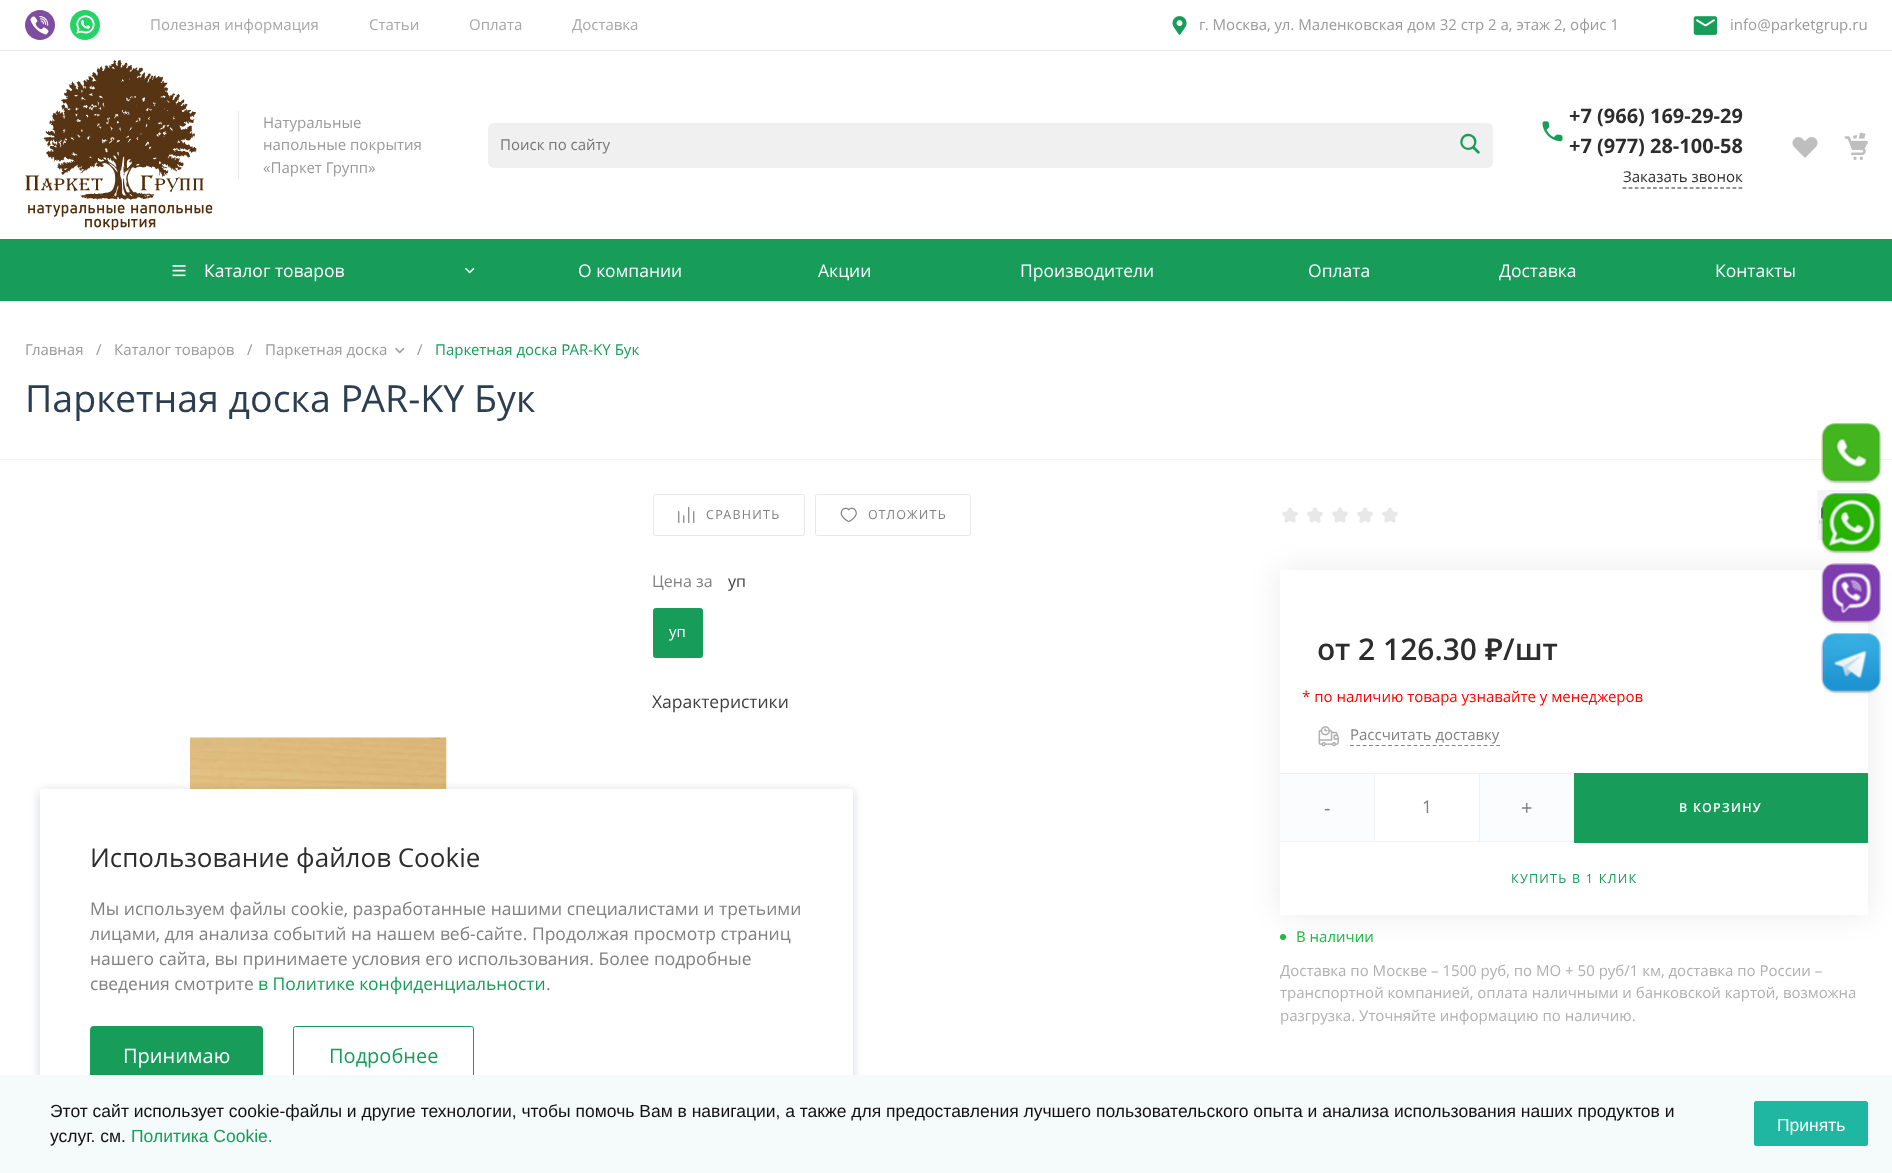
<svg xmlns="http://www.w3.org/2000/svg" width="1892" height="1173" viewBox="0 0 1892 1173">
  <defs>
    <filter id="blur1" x="-50%" y="-200%" width="200%" height="500%"><feGaussianBlur stdDeviation="15"/></filter>
    <filter id="blur2" x="-50%" y="-200%" width="200%" height="500%"><feGaussianBlur stdDeviation="2.5"/></filter>
    <clipPath id="clip1"><path d="M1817 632H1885V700H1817ZM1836 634H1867C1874 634 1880 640 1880 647V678C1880 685 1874 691 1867 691H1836C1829 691 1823 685 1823 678V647C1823 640 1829 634 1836 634Z" clip-rule="evenodd"/></clipPath>
    <filter id="blur3" x="-50%" y="-200%" width="200%" height="500%"><feGaussianBlur stdDeviation="5"/></filter>
  </defs>
  <rect width="100%" height="100%" fill="#ffffff"/>
  <rect x="0" y="50" width="1892" height="1" fill="#e8e8e8"/>
  <image x="25" y="10" width="30" height="30" href="img1.png"/>
  <image x="70" y="10" width="30" height="30" href="img2.png"/>
  <text x="150" y="30" font-family="Open Sans" font-size="15" fill="#a7a7a7">Полезная информация</text>
  <text x="369" y="30" font-family="Open Sans" font-size="15" fill="#a7a7a7">Статьи</text>
  <text x="469" y="30" font-family="Open Sans" font-size="15" fill="#a7a7a7">Оплата</text>
  <text x="572" y="30" font-family="Open Sans" font-size="15" fill="#a7a7a7">Доставка</text>
  <image x="1172" y="16" width="15" height="19" href="img3.png"/>
  <text x="1199" y="30" font-family="Open Sans" font-size="15" fill="#9a9a9a">г. Москва, ул. Маленковская дом 32 стр 2 а, этаж 2, офис 1</text>
  <image x="1693" y="16" width="25" height="19" href="img4.png"/>
  <text x="1730" y="30" font-family="Open Sans" font-size="15" fill="#9a9a9a">info@parketgrup.ru</text>
  <image x="25" y="60" width="188" height="170" href="img5.png"/>
  <rect x="238" y="111" width="1" height="68" fill="#e8e8e8"/>
  <text x="263" y="128" font-family="Open Sans" font-size="15" fill="#9a9a9a">Натуральные</text>
  <text x="263" y="150" font-family="Open Sans" font-size="15" fill="#9a9a9a">напольные покрытия</text>
  <text x="263" y="173" font-family="Open Sans" font-size="15" fill="#9a9a9a">«Паркет Групп»</text>
  <rect x="488" y="123" width="1005" height="45" rx="6" fill="#f0f0f0"/>
  <text x="500" y="150" font-family="Open Sans" font-size="15" fill="#757575">Поиск по сайту</text>
  <image x="1460" y="133" width="20" height="21" href="img6.png"/>
  <image x="1542" y="121" width="21" height="21" href="img7.png"/>
  <text x="1569" y="123" font-family="Open Sans" font-size="20" font-weight="bold" fill="#2d2d2d">+7 (966) 169-29-29</text>
  <text x="1569" y="153" font-family="Open Sans" font-size="20" font-weight="bold" fill="#2d2d2d">+7 (977) 28-100-58</text>
  <path d="M1622.5 188H1742.5" fill="none" stroke="#2d2d2d" stroke-width="1.2" stroke-dasharray="3.75 2.36"/>
  <text x="1623" y="182" font-family="Open Sans" font-size="15" fill="#2d2d2d">Заказать звонок</text>
  <image x="1792" y="137" width="26" height="21" href="img8.png"/>
  <image x="1844" y="132" width="24" height="28" href="img9.png"/>
  <rect x="0" y="239" width="1892" height="62" fill="#179c5a"/>
  <image x="172" y="265" width="14" height="12" href="img10.png"/>
  <text x="204" y="277" font-family="Open Sans" font-size="17.5" fill="#ffffff">Каталог товаров</text>
  <image x="465" y="267" width="10" height="7" href="img11.png"/>
  <text x="578" y="277" font-family="Open Sans" font-size="17.5" fill="#ffffff">О компании</text>
  <text x="818" y="277" font-family="Open Sans" font-size="17.5" fill="#ffffff">Акции</text>
  <text x="1020" y="277" font-family="Open Sans" font-size="17.5" fill="#ffffff">Производители</text>
  <text x="1308" y="277" font-family="Open Sans" font-size="17.5" fill="#ffffff">Оплата</text>
  <text x="1499" y="277" font-family="Open Sans" font-size="17.5" fill="#ffffff">Доставка</text>
  <text x="1715" y="277" font-family="Open Sans" font-size="17.5" fill="#ffffff">Контакты</text>
  <text x="25" y="355" font-family="Open Sans" font-size="15" fill="#9a9a9a">Главная</text>
  <text x="96" y="355" font-family="Open Sans" font-size="15" fill="#9a9a9a">/</text>
  <text x="114" y="355" font-family="Open Sans" font-size="15" fill="#9a9a9a">Каталог товаров</text>
  <text x="247" y="355" font-family="Open Sans" font-size="15" fill="#9a9a9a">/</text>
  <text x="265" y="355" font-family="Open Sans" font-size="15" fill="#9a9a9a">Паркетная доска</text>
  <image x="395" y="347" width="10" height="7" href="img12.png"/>
  <text x="417" y="355" font-family="Open Sans" font-size="15" fill="#9a9a9a">/</text>
  <text x="435" y="355" font-family="Open Sans" font-size="15" fill="#179c5a">Паркетная доска PAR-KY Бук</text>
  <text x="25" y="412" font-family="Open Sans" font-size="37.5" fill="#2c3e50">Паркетная доска PAR-KY Бук</text>
  <rect x="0" y="459" width="1892" height="1" fill="#f2f2f2"/>
  <rect x="653.5" y="494.5" width="151" height="41" rx="2" fill="none" stroke="#e8e8e8"/>
  <image x="678" y="506" width="17" height="18" href="img13.png"/>
  <text x="706" y="519" font-family="Open Sans" font-size="12.5" letter-spacing="1.25" fill="#808080">СРАВНИТЬ</text>
  <rect x="815.5" y="494.5" width="155" height="41" rx="2" fill="none" stroke="#e8e8e8"/>
  <image x="840" y="507" width="17" height="16" href="img14.png"/>
  <text x="868" y="519" font-family="Open Sans" font-size="12.5" letter-spacing="1.25" fill="#808080">ОТЛОЖИТЬ</text>
  <image x="1282" y="507" width="16" height="16" href="img15.png"/>
  <image x="1307" y="507" width="16" height="16" href="img15.png"/>
  <image x="1332" y="507" width="16" height="16" href="img15.png"/>
  <image x="1357" y="507" width="16" height="16" href="img15.png"/>
  <image x="1382" y="507" width="16" height="16" href="img15.png"/>
  <image x="1817" y="490" width="51" height="50" href="img16.png"/>
  <image x="190" y="737" width="257" height="52" href="img17.png"/>
  <text x="652" y="587" font-family="Open Sans" font-size="16" fill="#808080">Цена за</text>
  <text x="728" y="587" font-family="Open Sans" font-size="16" fill="#404040">уп</text>
  <rect x="653.5" y="608.5" width="49" height="49" rx="2" fill="#179c5a" stroke="#179c5a"/>
  <text x="669" y="637" font-family="Open Sans" font-size="15" fill="#ffffff">уп</text>
  <text x="652" y="708" font-family="Open Sans" font-size="17.5" fill="#404040">Характеристики</text>
  <rect x="1280" y="570" width="588" height="345" fill="#1b1e25" fill-opacity="0.08" filter="url(#blur1)"/>
  <rect x="1280" y="570" width="588" height="345" fill="#ffffff"/>
  <text x="1317" y="660" font-family="Open Sans" font-size="30" font-weight="600" fill="#2d2d2d">от 2 126.30</text>
  <text x="1485" y="660" font-family="Noto Sans" font-size="30" font-weight="600" fill="#2d2d2d">₽</text>
  <text x="1503" y="660" font-family="Open Sans" font-size="30" font-weight="600" fill="#2d2d2d">/шт</text>
  <text x="1302" y="702" font-family="Open Sans" font-size="15" fill="#ff0000">* по наличию товара узнавайте у менеджеров</text>
  <image x="1318" y="726" width="21" height="21" href="img18.png"/>
  <path d="M1350 745.5H1500" fill="none" stroke="#808080" stroke-width="1.2" stroke-dasharray="3.75 2.61"/>
  <text x="1350" y="740" font-family="Open Sans" font-size="15" fill="#808080">Рассчитать доставку</text>
  <rect x="1280" y="773" width="294" height="1" fill="#f2f2f2"/>
  <rect x="1280" y="841" width="294" height="1" fill="#f2f2f2"/>
  <rect x="1280" y="774" width="94" height="67" fill="#fbfcfd"/>
  <text x="1324" y="815" font-family="Open Sans" font-size="20" fill="#808080">-</text>
  <rect x="1479" y="774" width="1" height="67" fill="#f2f2f2"/>
  <rect x="1374" y="774" width="1" height="67" fill="#f2f2f2"/>
  <text x="1422" y="813" font-family="Open Sans" font-size="17.5" fill="#808080">1</text>
  <rect x="1480" y="774" width="94" height="67" fill="#fbfcfd"/>
  <text x="1521" y="815" font-family="Open Sans" font-size="20" fill="#808080">+</text>
  <rect x="1574" y="773" width="294" height="70" fill="#179c5a"/>
  <text x="1679" y="812" font-family="Open Sans" font-size="12.5" font-weight="600" letter-spacing="1.25" fill="#ffffff">В КОРЗИНУ</text>
  <text x="1511" y="883" font-family="Open Sans" font-size="12.5" letter-spacing="1.25" fill="#179c5a">КУПИТЬ В 1 КЛИК</text>
  <circle cx="1283" cy="937" r="3" fill="#1db940"/>
  <text x="1296" y="942" font-family="Open Sans" font-size="15" fill="#1db940">В наличии</text>
  <text x="1280" y="976" font-family="Open Sans" font-size="15" fill="#b0b0b0">Доставка по Москве – 1500 руб, по МО + 50 руб/1 км, доставка по России –</text>
  <text x="1280" y="998" font-family="Open Sans" font-size="15" fill="#b0b0b0">транспортной компанией, оплата наличными и банковской картой, возможна</text>
  <text x="1280" y="1021" font-family="Open Sans" font-size="15" fill="#b0b0b0">разгрузка. Уточняйте информацию по наличию.</text>
  <rect x="1826" y="431" width="50" height="50" rx="9" fill="#000000" fill-opacity="0.3" filter="url(#blur2)"/>
  <rect x="1821.5" y="423.5" width="59" height="59" rx="13.5" fill="none" stroke="#000000" stroke-opacity="0.1"/>
  <image x="1822" y="423" width="59" height="59" href="img19.png"/>
  <rect x="1826" y="501" width="50" height="50" rx="9" fill="#000000" fill-opacity="0.3" filter="url(#blur2)"/>
  <rect x="1821.5" y="493.5" width="59" height="59" rx="13.5" fill="none" stroke="#000000" stroke-opacity="0.1"/>
  <image x="1822" y="493" width="59" height="59" href="img20.png"/>
  <rect x="1826" y="571" width="50" height="50" rx="9" fill="#000000" fill-opacity="0.3" filter="url(#blur2)"/>
  <rect x="1821.5" y="563.5" width="59" height="59" rx="13.5" fill="none" stroke="#000000" stroke-opacity="0.1"/>
  <image x="1822" y="563" width="59" height="59" href="img21.png"/>
  <g clip-path="url(#clip1)">
    <rect x="1826" y="641" width="50" height="50" rx="9" fill="#000000" fill-opacity="0.3" filter="url(#blur2)"/>
  </g>
  <rect x="1821.5" y="633.5" width="59" height="59" rx="13.5" fill="none" stroke="#000000" stroke-opacity="0.1"/>
  <image x="1822" y="633" width="59" height="59" href="img22.png"/>
  <rect x="40" y="791" width="813" height="345" rx="2.5" fill="#223c50" fill-opacity="0.2" filter="url(#blur3)"/>
  <rect x="40" y="789" width="813" height="345" rx="2.5" fill="#ffffff"/>
  <text x="90" y="867" font-family="Open Sans" font-size="26" fill="#2d2d2d">Использование файлов Cookie</text>
  <text x="90" y="915" font-family="Open Sans" font-size="17.5" fill="#808080">Мы используем файлы cookie, разработанные нашими специалистами и третьими</text>
  <text x="90" y="940" font-family="Open Sans" font-size="17.5" fill="#808080">лицами, для анализа событий на нашем веб-сайте. Продолжая просмотр страниц</text>
  <text x="90" y="965" font-family="Open Sans" font-size="17.5" fill="#808080">нашего сайта, вы принимаете условия его использования. Более подробные</text>
  <text x="90" y="990" font-family="Open Sans" font-size="17.5" fill="#808080">сведения смотрите</text>
  <text x="258" y="990" font-family="Open Sans" font-size="17.5" fill="#179c5a">в Политике конфиденциальности</text>
  <text x="546" y="990" font-family="Open Sans" font-size="17.5" fill="#808080">.</text>
  <rect x="91.5" y="1027.5" width="170" height="55" rx="2.5" fill="#179c5a" stroke="#179c5a" stroke-width="3"/>
  <text x="123" y="1063" font-family="Open Sans" font-size="20" fill="#ffffff">Принимаю</text>
  <rect x="293.5" y="1026.5" width="180" height="57" rx="2" fill="none" stroke="#179c5a"/>
  <text x="329" y="1063" font-family="Open Sans" font-size="20" fill="#179c5a">Подробнее</text>
  <rect x="0" y="1075" width="1892" height="98" fill="#f5fafa"/>
  <text x="50" y="1117" font-family="Liberation Sans" font-size="17.5" fill="#111111">Этот сайт использует cookie-файлы и другие технологии, чтобы помочь Вам в навигации, а также для предоставления лучшего пользовательского опыта и анализа использования наших продуктов и</text>
  <text x="50" y="1142" font-family="Liberation Sans" font-size="17.5" fill="#111111">услуг. см.</text>
  <text x="131" y="1142" font-family="Liberation Sans" font-size="17.5" fill="#179c5a">Политика Cookie.</text>
  <rect x="1755.5" y="1102.5" width="111" height="42" rx="1" fill="#1fb6a2" stroke="#1fb6a2" stroke-width="3"/>
  <text x="1777" y="1131" font-family="Liberation Sans" font-size="17.5" fill="#ffffff">Принять</text>
</svg>
